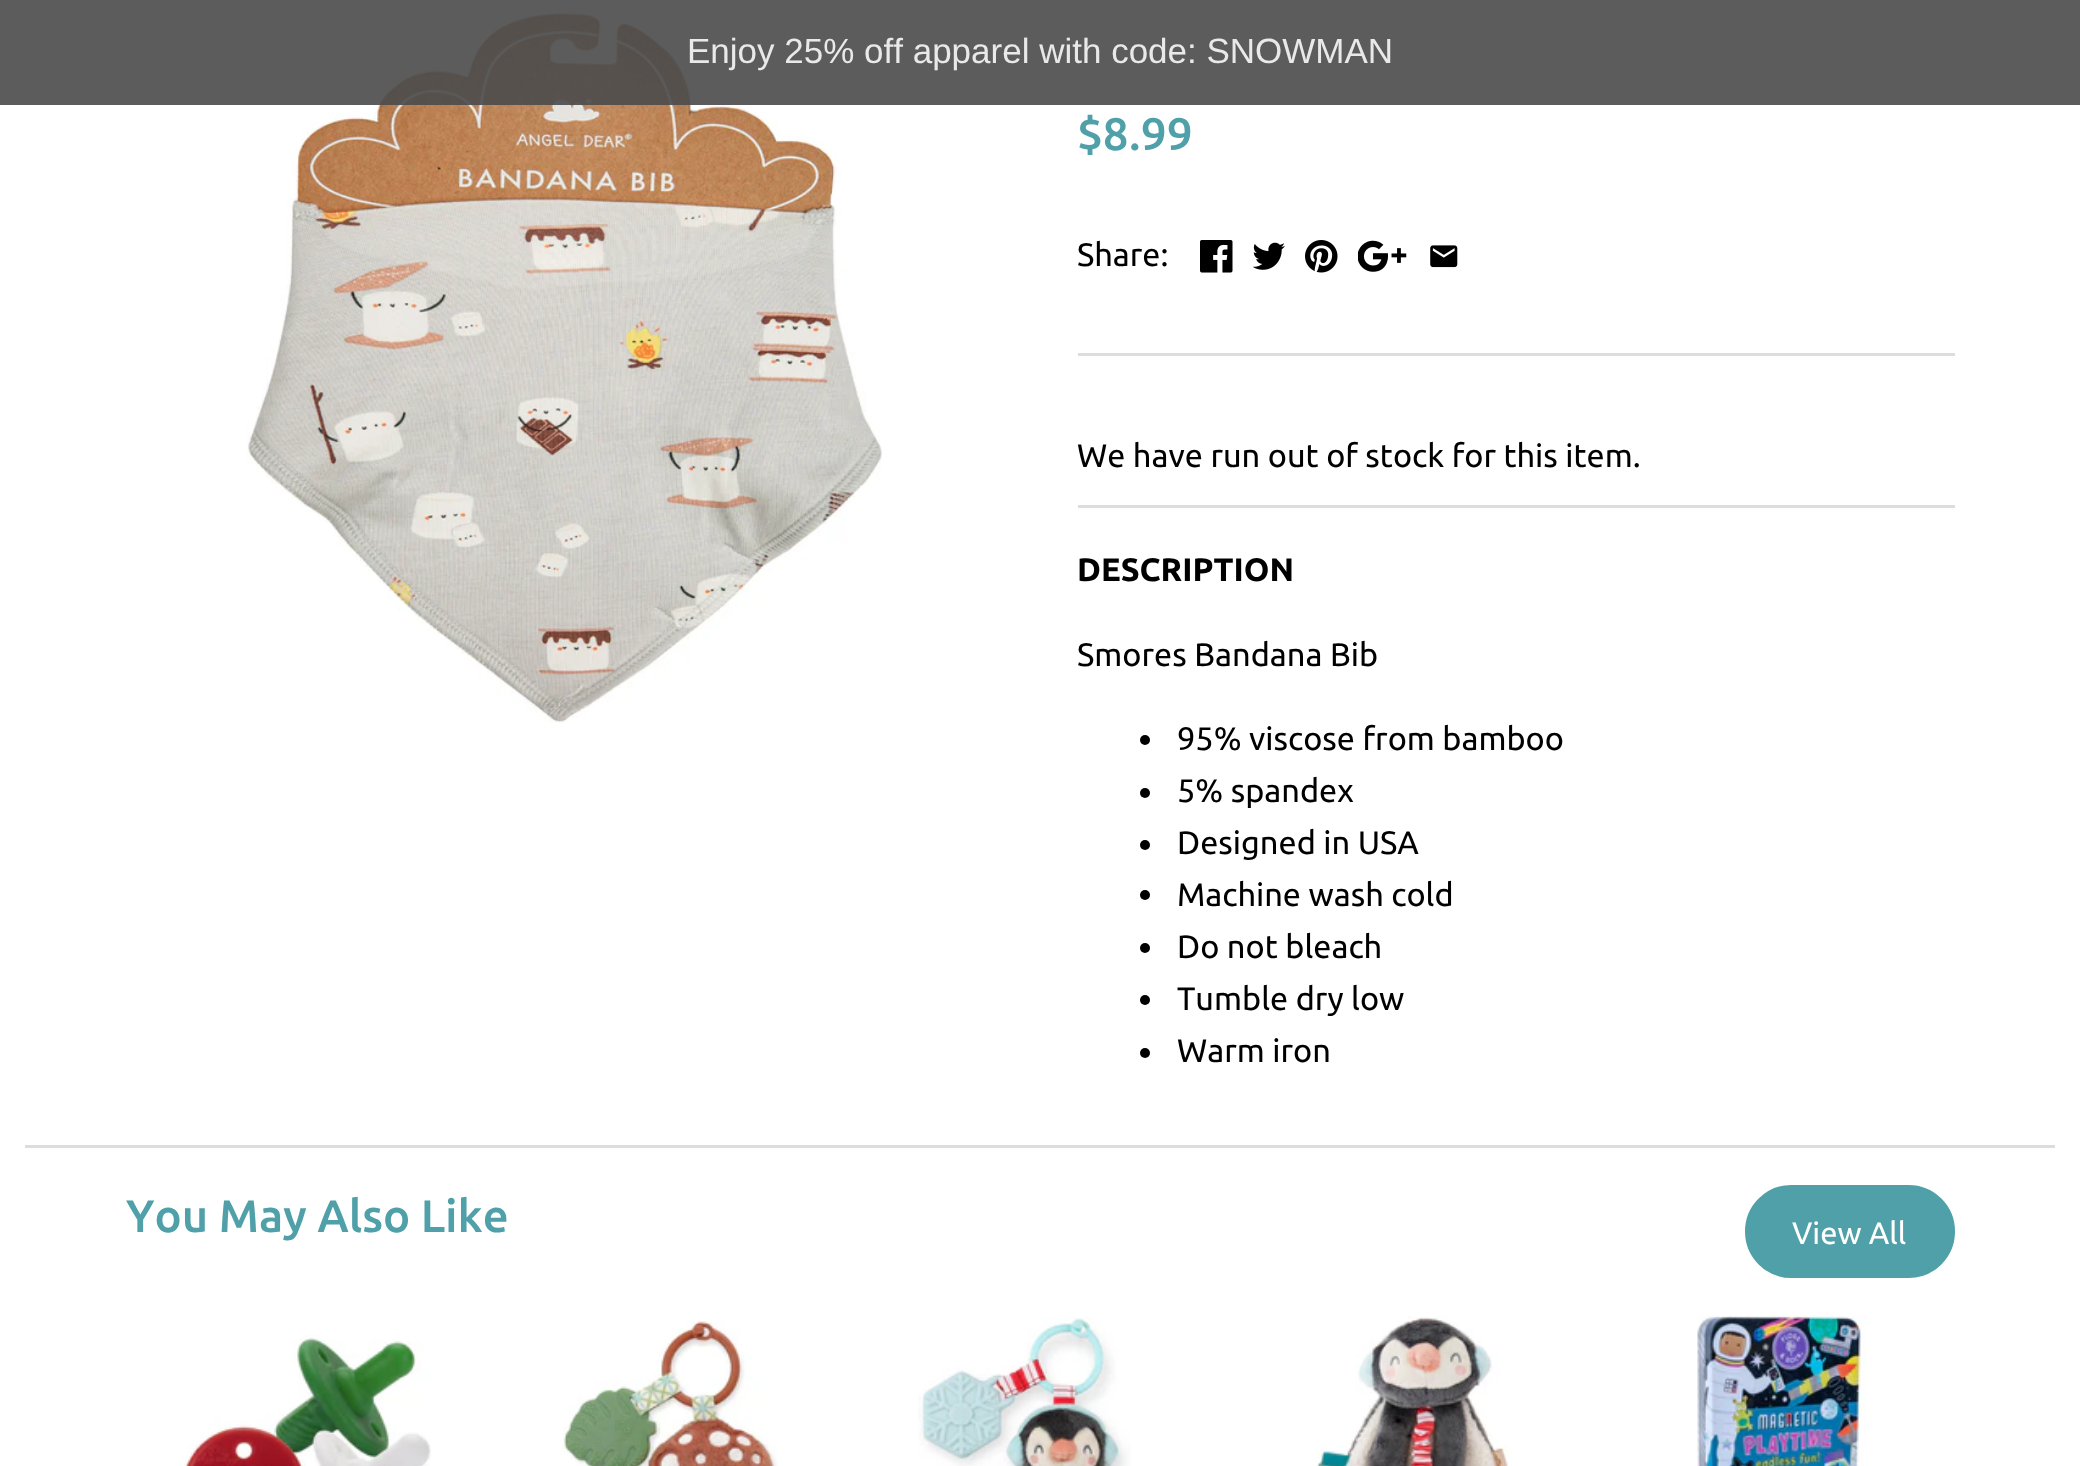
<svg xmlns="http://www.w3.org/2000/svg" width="2080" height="1466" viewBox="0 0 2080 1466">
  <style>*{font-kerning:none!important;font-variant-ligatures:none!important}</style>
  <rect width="100%" height="100%" fill="#ffffff"/>
  <image x="247" y="7" width="635" height="716" href="img1.png"/>
  <rect x="0" y="0" width="2080" height="105" fill="#4c4c4c" fill-opacity="0.91"/>
  <text x="687" y="63" font-family="Liberation Sans" font-size="35" fill="#eae9e9">Enjoy 25% off apparel with code: SNOWMAN</text>
  <rect x="1078" y="353" width="877" height="3" fill="#dddddd"/>
  <text x="1077" y="150" font-family="Ubuntu" font-size="45.5" font-weight="500" fill="#4fa0a8">$8.99</text>
  <text x="1077" y="266" font-family="Ubuntu" font-size="32.5" fill="#000000">Share:</text>
  <image x="1200" y="240" width="33" height="33" href="img2.png"/>
  <image x="1253" y="242" width="32" height="28" href="img3.png"/>
  <image x="1305" y="240" width="33" height="33" href="img4.png"/>
  <image x="1358" y="240" width="49" height="32" href="img5.png"/>
  <image x="1430" y="245" width="28" height="23" href="img6.png"/>
  <rect x="1078" y="505" width="877" height="3" fill="#dddddd"/>
  <text x="1077" y="467" font-family="Ubuntu" font-size="32.5" fill="#000000">We have run out of stock for this item.</text>
  <text x="1077" y="581" font-family="Ubuntu" font-size="32.5" font-weight="bold" fill="#000000">DESCRIPTION</text>
  <text x="1077" y="666" font-family="Ubuntu" font-size="32.5" fill="#000000">Smores Bandana Bib</text>
  <circle cx="1145" cy="740" r="5" fill="#000000"/>
  <text x="1177" y="750" font-family="Ubuntu" font-size="32.5" fill="#000000">95% viscose from bamboo</text>
  <circle cx="1145" cy="793" r="5" fill="#000000"/>
  <text x="1177" y="802" font-family="Ubuntu" font-size="32.5" fill="#000000">5% spandex</text>
  <circle cx="1145" cy="845" r="5" fill="#000000"/>
  <text x="1177" y="854" font-family="Ubuntu" font-size="32.5" fill="#000000">Designed in USA</text>
  <circle cx="1145" cy="895" r="5" fill="#000000"/>
  <text x="1177" y="906" font-family="Ubuntu" font-size="32.5" fill="#000000">Machine wash cold</text>
  <circle cx="1145" cy="948" r="5" fill="#000000"/>
  <text x="1177" y="958" font-family="Ubuntu" font-size="32.5" fill="#000000">Do not bleach</text>
  <circle cx="1145" cy="1000" r="5" fill="#000000"/>
  <text x="1177" y="1010" font-family="Ubuntu" font-size="32.5" fill="#000000">Tumble dry low</text>
  <circle cx="1145" cy="1053" r="5" fill="#000000"/>
  <text x="1177" y="1062" font-family="Ubuntu" font-size="32.5" fill="#000000">Warm iron</text>
  <rect x="25" y="1145" width="2030" height="3" fill="#dddddd"/>
  <text x="126" y="1232" font-family="Ubuntu" font-size="45.5" font-weight="500" fill="#4fa0a8">You May Also Like</text>
  <rect x="1747.5" y="1187.5" width="205" height="88" rx="44" fill="#4fa0a8" stroke="#4fa0a8" stroke-width="5"/>
  <text x="1792" y="1244" font-family="Ubuntu" font-size="31" fill="#ffffff">View All</text>
  <image x="183" y="1335" width="248" height="131" href="img7.png"/>
  <image x="562" y="1320" width="216" height="146" href="img8.png"/>
  <image x="918" y="1318" width="213" height="148" href="img9.png"/>
  <image x="1316" y="1316" width="193" height="150" href="img10.png"/>
  <image x="1697" y="1315" width="170" height="151" href="img11.png"/>
</svg>
